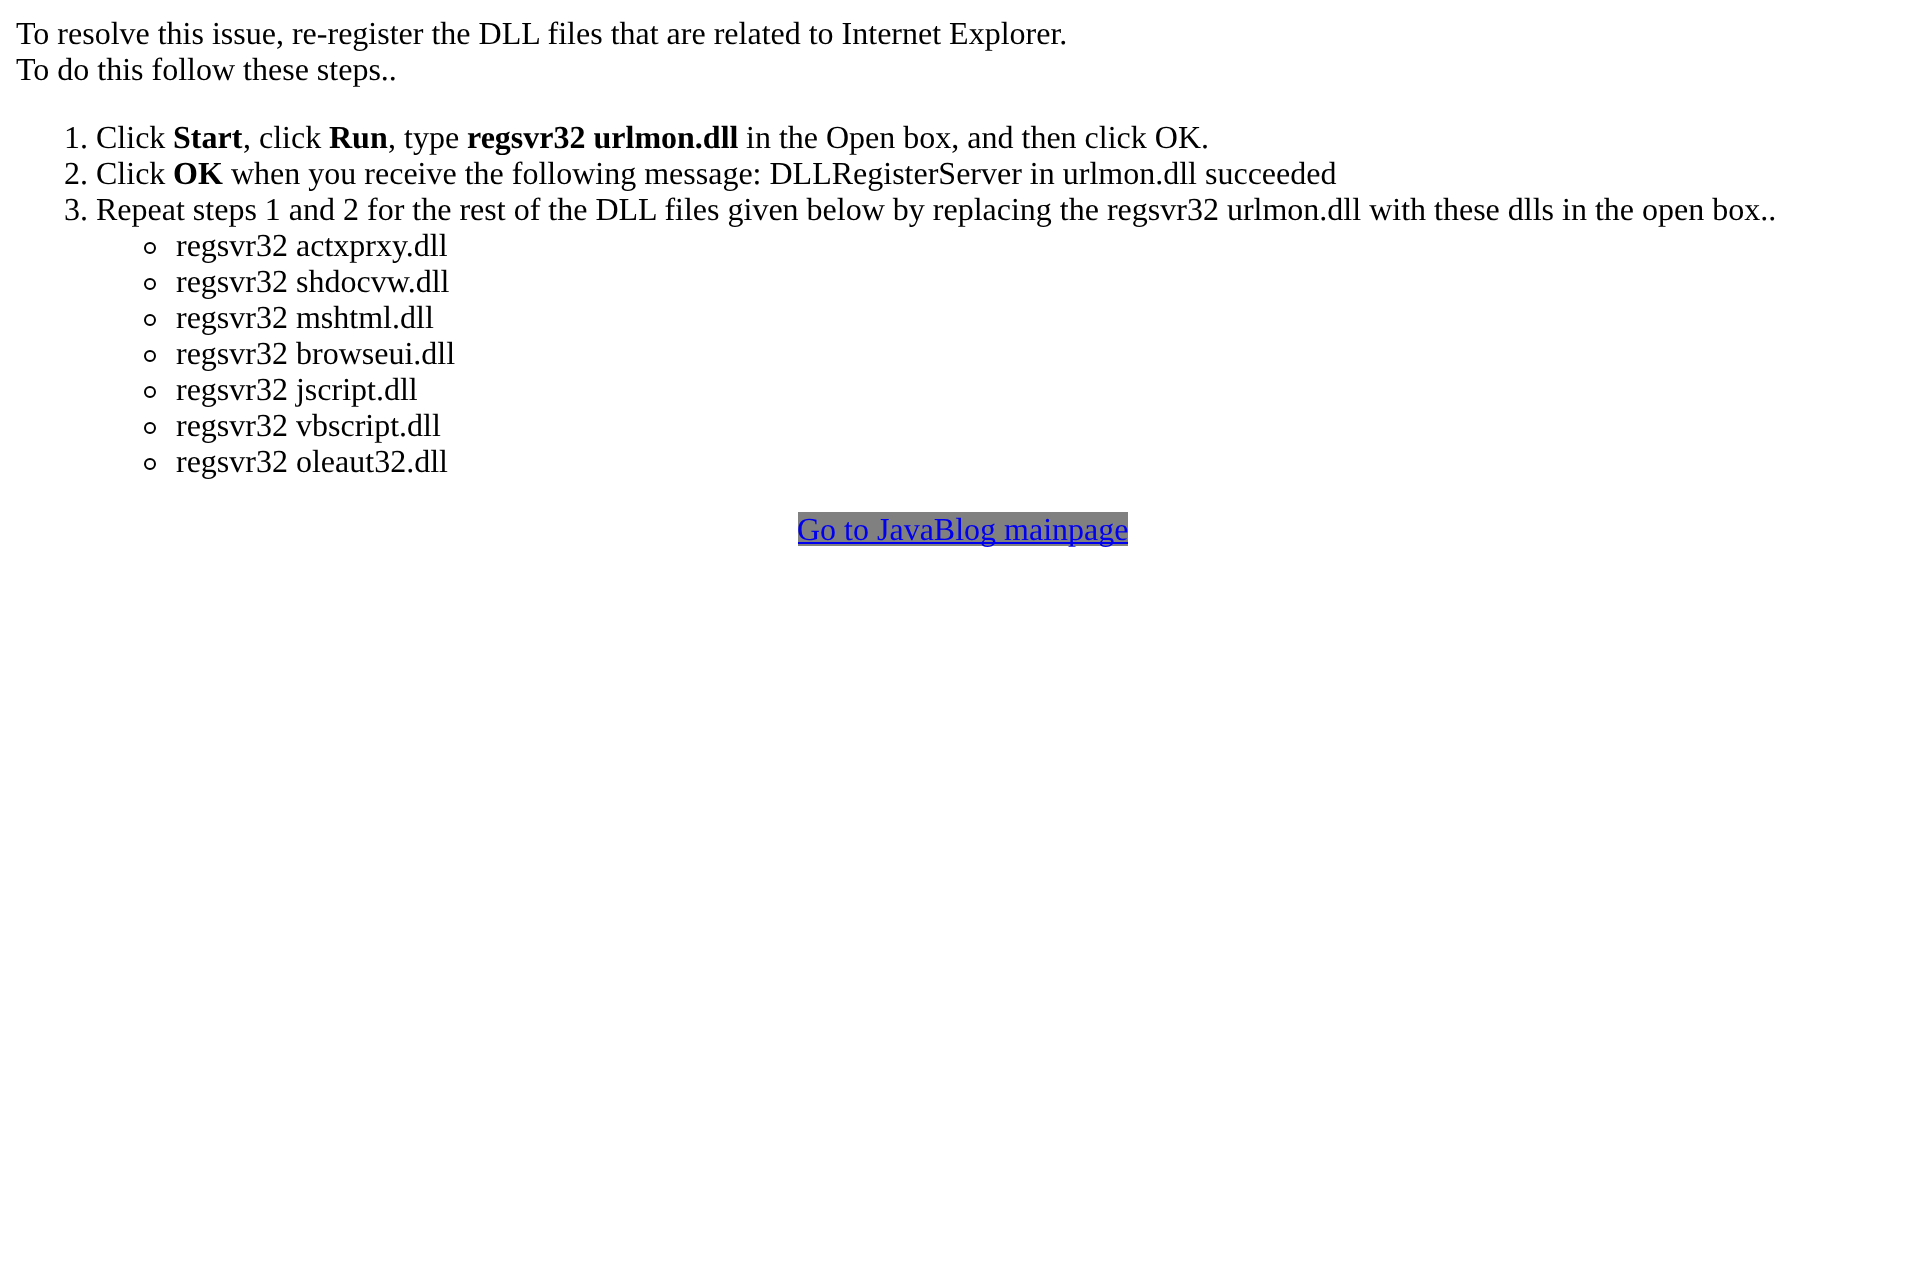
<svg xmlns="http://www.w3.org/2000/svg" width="1926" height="1271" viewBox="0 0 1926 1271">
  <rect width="100%" height="100%" fill="#ffffff"/>
  <text x="16" y="44" font-family="Liberation Serif" font-size="32" fill="#000000">To resolve this issue, re-register the DLL files that are related to Internet Explorer.</text>
  <text x="16" y="80" font-family="Liberation Serif" font-size="32" fill="#000000">To do this follow these steps..</text>
  <text x="64" y="148" font-family="Liberation Serif" font-size="32" fill="#000000">1. Click</text>
  <text x="173" y="148" font-family="Liberation Serif" font-size="32" font-weight="bold" fill="#000000">Start</text>
  <text x="243" y="148" font-family="Liberation Serif" font-size="32" fill="#000000">, click</text>
  <text x="329" y="148" font-family="Liberation Serif" font-size="32" font-weight="bold" fill="#000000">Run</text>
  <text x="388" y="148" font-family="Liberation Serif" font-size="32" fill="#000000">, type</text>
  <text x="467" y="148" font-family="Liberation Serif" font-size="32" font-weight="bold" fill="#000000">regsvr32 urlmon.dll</text>
  <text x="746" y="148" font-family="Liberation Serif" font-size="32" fill="#000000">in the Open box, and then click OK.</text>
  <text x="64" y="184" font-family="Liberation Serif" font-size="32" fill="#000000">2. Click</text>
  <text x="173" y="184" font-family="Liberation Serif" font-size="32" font-weight="bold" fill="#000000">OK</text>
  <text x="231" y="184" font-family="Liberation Serif" font-size="32" fill="#000000">when you receive the following message: DLLRegisterServer in urlmon.dll succeeded</text>
  <text x="64" y="220" font-family="Liberation Serif" font-size="32" fill="#000000">3. Repeat steps 1 and 2 for the rest of the DLL files given below by replacing the regsvr32 urlmon.dll with these dlls in the open box..</text>
  <circle cx="150" cy="248" r="5" fill="none" stroke="#000000" stroke-width="2"/>
  <text x="176" y="256" font-family="Liberation Serif" font-size="32" fill="#000000">regsvr32 actxprxy.dll</text>
  <circle cx="150" cy="284" r="5" fill="none" stroke="#000000" stroke-width="2"/>
  <text x="176" y="292" font-family="Liberation Serif" font-size="32" fill="#000000">regsvr32 shdocvw.dll</text>
  <circle cx="150" cy="320" r="5" fill="none" stroke="#000000" stroke-width="2"/>
  <text x="176" y="328" font-family="Liberation Serif" font-size="32" fill="#000000">regsvr32 mshtml.dll</text>
  <circle cx="150" cy="356" r="5" fill="none" stroke="#000000" stroke-width="2"/>
  <text x="176" y="364" font-family="Liberation Serif" font-size="32" fill="#000000">regsvr32 browseui.dll</text>
  <circle cx="150" cy="392" r="5" fill="none" stroke="#000000" stroke-width="2"/>
  <text x="176" y="400" font-family="Liberation Serif" font-size="32" fill="#000000">regsvr32 jscript.dll</text>
  <circle cx="150" cy="428" r="5" fill="none" stroke="#000000" stroke-width="2"/>
  <text x="176" y="436" font-family="Liberation Serif" font-size="32" fill="#000000">regsvr32 vbscript.dll</text>
  <circle cx="150" cy="464" r="5" fill="none" stroke="#000000" stroke-width="2"/>
  <text x="176" y="472" font-family="Liberation Serif" font-size="32" fill="#000000">regsvr32 oleaut32.dll</text>
  <rect x="798" y="512" width="330" height="34" fill="#808080"/>
  <rect x="798" y="542" width="330" height="2" fill="#0000ee"/>
  <text x="797" y="540" font-family="Liberation Serif" font-size="32" fill="#0000ee">Go to JavaBlog mainpage</text>
</svg>
